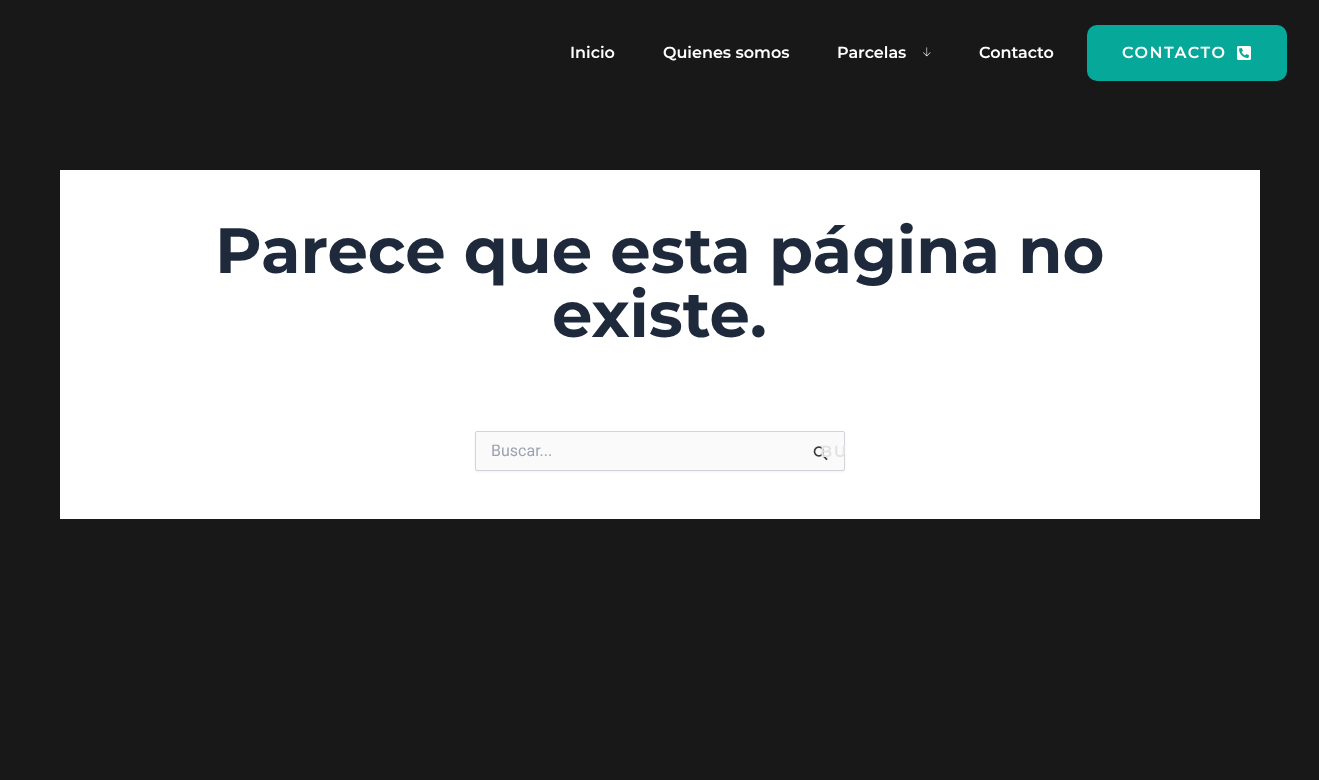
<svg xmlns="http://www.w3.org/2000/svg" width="1319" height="780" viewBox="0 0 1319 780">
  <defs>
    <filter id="blur1" x="-50%" y="-200%" width="200%" height="500%"><feGaussianBlur stdDeviation="1"/></filter>
  </defs>
  <rect width="100%" height="100%" fill="#181818"/>
  <text x="570" y="58" font-family="Montserrat" font-size="16" font-weight="600" fill="#ffffff">Inicio</text>
  <text x="663" y="58" font-family="Montserrat" font-size="16" font-weight="600" fill="#ffffff">Quienes somos</text>
  <text x="837" y="58" font-family="Montserrat" font-size="16" font-weight="600" fill="#ffffff">Parcelas</text>
  <image x="923" y="47" width="8" height="10" href="img1.png"/>
  <text x="979" y="58" font-family="Montserrat" font-size="16" font-weight="600" fill="#ffffff">Contacto</text>
  <rect x="1087" y="25" width="200" height="56" rx="10" fill="#06a899"/>
  <text x="1122" y="58" font-family="Montserrat" font-size="16" font-weight="600" letter-spacing="1.5" fill="#ffffff">CONTACTO</text>
  <image x="1237" y="46" width="14" height="14" href="img2.png"/>
  <rect x="60" y="170" width="1200" height="349" fill="#ffffff"/>
  <text x="215" y="273" font-family="Montserrat" font-size="64" font-weight="bold" fill="#1e293b">Parece que esta página no</text>
  <text x="552" y="337" font-family="Montserrat" font-size="64" font-weight="bold" fill="#1e293b">existe.</text>
  <rect x="475" y="432" width="370" height="40" rx="2" fill="#000000" fill-opacity="0.05" filter="url(#blur1)"/>
  <rect x="475.5" y="431.5" width="369" height="39" rx="1.5" fill="#fafafa" stroke="#d1d5db"/>
  <text x="491" y="456" font-family="Roboto" font-size="16" fill="#9ca3af">Buscar...</text>
  <image x="813" y="446" width="15" height="15" href="img3.png"/>
  <text x="820" y="457" font-family="Montserrat" font-size="16" font-weight="600" letter-spacing="1.5" fill="#e3e3e4">BU</text>
</svg>
